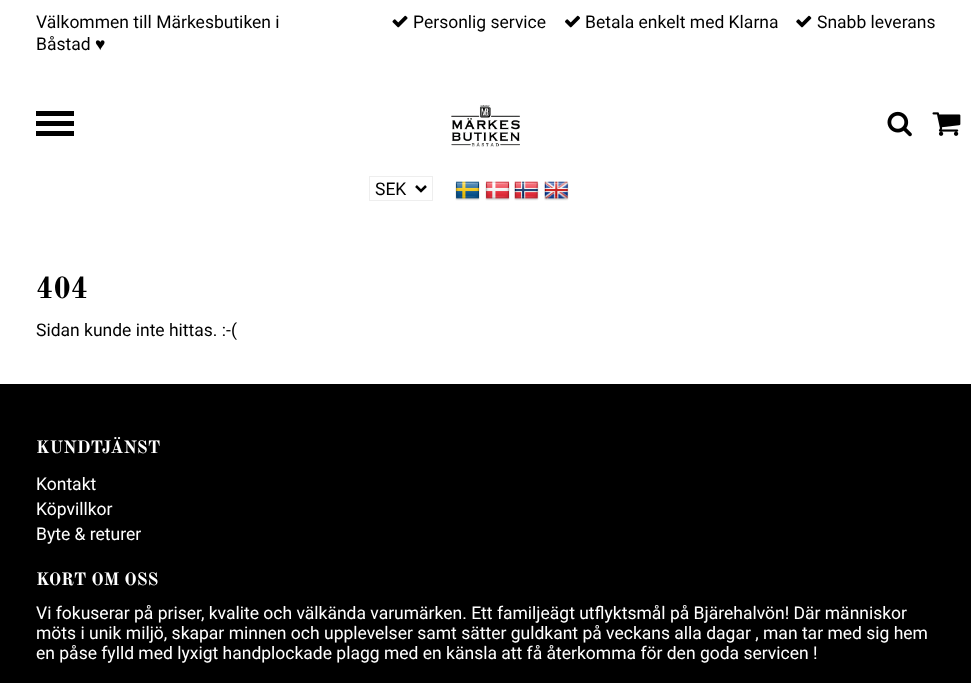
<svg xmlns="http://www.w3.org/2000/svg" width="971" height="683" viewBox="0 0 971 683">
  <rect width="100%" height="100%" fill="#ffffff"/>
  <text x="36" y="28" font-family="Roboto" font-size="17.5" fill="#000000">Välkommen till Märkesbutiken i</text>
  <text x="36" y="50" font-family="Roboto" font-size="17.5" fill="#000000">Båstad</text>
  <text x="95" y="50" font-family="Liberation Sans" font-size="17.5" fill="#000000">♥︎</text>
  <image x="392" y="15" width="16" height="13" href="img1.png"/>
  <text x="413" y="28" font-family="Roboto" font-size="17.5" fill="#000000">Personlig service</text>
  <image x="565" y="15" width="15" height="13" href="img2.png"/>
  <text x="585" y="28" font-family="Roboto" font-size="17.5" fill="#000000">Betala enkelt med Klarna</text>
  <image x="796" y="15" width="16" height="13" href="img3.png"/>
  <text x="817" y="28" font-family="Roboto" font-size="17.5" fill="#000000">Snabb leverans</text>
  <rect x="36" y="121" width="38" height="5" fill="#000000"/>
  <rect x="36" y="111" width="38" height="5" fill="#000000"/>
  <rect x="36" y="131" width="38" height="5" fill="#000000"/>
  <image x="451" y="105" width="69" height="42" href="img4.png"/>
  <image x="887" y="111" width="25" height="26" href="img5.png"/>
  <image x="932" y="112" width="29" height="24" href="img6.png"/>
  <rect x="369.5" y="176.5" width="63" height="24" fill="none" stroke="#eeeeee"/>
  <path d="M416 186L421 191L426 186" fill="none" stroke="#000000" stroke-width="2.5"/>
  <text x="375" y="195" font-family="Roboto" font-size="17.5" fill="#000000">SEK</text>
  <image x="455" y="181" width="25" height="20" href="img7.png"/>
  <image x="485" y="181" width="25" height="20" href="img8.png"/>
  <image x="514" y="181" width="25" height="20" href="img9.png"/>
  <image x="544" y="181" width="25" height="20" href="img10.png"/>
  <text x="36" y="298" font-family="Old Standard TT" font-size="30" font-weight="bold" fill="#000000">404</text>
  <text x="36" y="336" font-family="Roboto" font-size="17.5" fill="#000000">Sidan kunde inte hittas. :-(</text>
  <rect x="0" y="384" width="971" height="299" fill="#000000"/>
  <text x="36" y="453" font-family="Old Standard TT" font-size="17.5" font-weight="bold" fill="#ffffff">KUNDTJÄNST</text>
  <text x="36" y="490" font-family="Roboto" font-size="17.5" fill="#ffffff">Kontakt</text>
  <text x="36" y="515" font-family="Roboto" font-size="17.5" fill="#ffffff">Köpvillkor</text>
  <text x="36" y="540" font-family="Roboto" font-size="17.5" fill="#ffffff">Byte &amp; returer</text>
  <text x="36" y="585" font-family="Old Standard TT" font-size="17.5" font-weight="bold" fill="#ffffff">KORT OM OSS</text>
  <text x="36" y="619" font-family="Roboto" font-size="17.5" fill="#ffffff">Vi fokuserar på priser, kvalite och välkända varumärken. Ett familjeägt utflyktsmål på Bjärehalvön! Där människor</text>
  <text x="36" y="639" font-family="Roboto" font-size="17.5" fill="#ffffff">möts i unik miljö, skapar minnen och upplevelser samt sätter guldkant på veckans alla dagar , man tar med sig hem</text>
  <text x="36" y="659" font-family="Roboto" font-size="17.5" fill="#ffffff">en påse fylld med lyxigt handplockade plagg med en känsla att få återkomma för den goda servicen !</text>
</svg>
